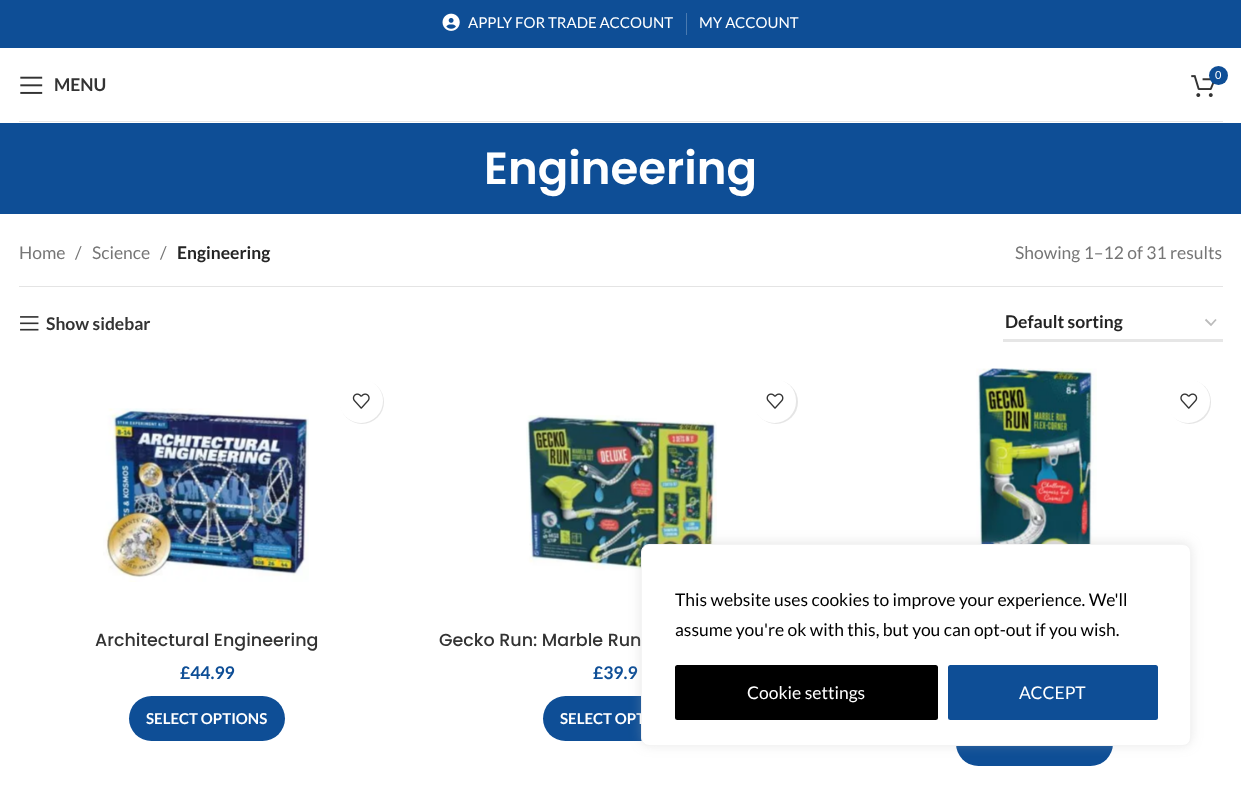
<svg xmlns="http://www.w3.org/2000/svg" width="1241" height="796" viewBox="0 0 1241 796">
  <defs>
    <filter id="blur1" x="-50%" y="-200%" width="200%" height="500%"><feGaussianBlur stdDeviation="0.5"/></filter>
    <filter id="blur2" x="-50%" y="-200%" width="200%" height="500%"><feGaussianBlur stdDeviation="6"/></filter>
  </defs>
  <rect width="100%" height="100%" fill="#ffffff"/>
  <rect x="0" y="0" width="1241" height="48" fill="#0e4e96"/>
  <image x="442" y="13" width="18" height="18" href="img1.png"/>
  <text x="468" y="28" font-family="Lato" font-size="15" fill="#ffffff">APPLY FOR TRADE ACCOUNT</text>
  <rect x="686" y="13" width="1" height="22" fill="#4a7ab0"/>
  <text x="699" y="28" font-family="Lato" font-size="15" fill="#ffffff">MY ACCOUNT</text>
  <rect x="19" y="121" width="1204" height="1" fill="#e8e8e8"/>
  <image x="1191" y="75" width="24" height="22" href="img2.png"/>
  <circle cx="1218.5" cy="75.5" r="9.5" fill="#0e4e96"/>
  <text x="1215" y="79" font-family="Lato" font-size="11" fill="#ffffff">0</text>
  <image x="20" y="76" width="23" height="18" href="img3.png"/>
  <text x="54" y="91" font-family="Lato" font-size="17.5" font-weight="bold" fill="#333333">MENU</text>
  <rect x="0" y="123" width="1241" height="91" fill="#0e4e96"/>
  <text x="484" y="184" font-family="Poppins" font-size="45" font-weight="600" fill="#ffffff">Engineering</text>
  <rect x="19" y="286" width="1204" height="1" fill="#e4e4e4"/>
  <text x="19" y="259" font-family="Lato" font-size="17.5" fill="#767676">Home</text>
  <text x="75" y="259" font-family="Lato" font-size="17.5" fill="#767676">/</text>
  <text x="92" y="259" font-family="Lato" font-size="17.5" fill="#767676">Science</text>
  <text x="160" y="259" font-family="Lato" font-size="17.5" fill="#767676">/</text>
  <text x="177" y="259" font-family="Lato" font-size="17.5" font-weight="bold" fill="#242424">Engineering</text>
  <text x="1015" y="259" font-family="Lato" font-size="17.5" fill="#767676">Showing 1–12 of 31 results</text>
  <image x="20" y="316" width="19" height="15" href="img4.png"/>
  <text x="46" y="330" font-family="Lato" font-size="17.5" font-weight="bold" fill="#333333">Show sidebar</text>
  <path d="M1205.5 319.5L1211 325L1216 319.5" fill="none" stroke="#bbbbbb" stroke-width="1.8"/>
  <rect x="1003" y="339" width="220" height="3" fill="#e6e6e6"/>
  <text x="1005" y="328" font-family="Lato" font-size="17.5" font-weight="bold" fill="#242424">Default sorting</text>
  <rect x="340" y="380" width="44" height="44" rx="22" fill="#000000" fill-opacity="0.1" filter="url(#blur1)"/>
  <circle cx="361" cy="401" r="22" fill="#ffffff"/>
  <image x="352" y="393" width="18" height="16" href="img5.png"/>
  <image x="103" y="408" width="206" height="174" href="img6.png"/>
  <text x="95" y="646" font-family="Poppins" font-size="17.5" font-weight="500" fill="#333333">Architectural Engineering</text>
  <text x="180" y="679" font-family="Lato" font-size="17.5" font-weight="bold" fill="#0e4e96">£44.99</text>
  <rect x="129" y="696" width="156" height="45" rx="22.5" fill="#0e4e96"/>
  <text x="146" y="724" font-family="Lato" font-size="15" font-weight="bold" fill="#ffffff">SELECT OPTIONS</text>
  <rect x="754" y="380" width="44" height="44" rx="22" fill="#000000" fill-opacity="0.1" filter="url(#blur1)"/>
  <rect x="753" y="379" width="43" height="44" rx="21.5" fill="#ffffff"/>
  <image x="766" y="393" width="18" height="16" href="img7.png"/>
  <image x="526" y="415" width="191" height="161" href="img8.png"/>
  <text x="439" y="646" font-family="Poppins" font-size="17.5" font-weight="500" fill="#333333">Gecko Run: Marble Run</text>
  <text x="593" y="679" font-family="Lato" font-size="17.5" font-weight="bold" fill="#0e4e96">£39.9</text>
  <rect x="543" y="696" width="156" height="45" rx="22.5" fill="#0e4e96"/>
  <text x="560" y="724" font-family="Lato" font-size="15" font-weight="bold" fill="#ffffff">SELECT OPT</text>
  <image x="976" y="368" width="121" height="176" href="img9.png"/>
  <rect x="1168" y="380" width="43" height="44" rx="21.5" fill="#000000" fill-opacity="0.1" filter="url(#blur1)"/>
  <circle cx="1188" cy="401" r="22" fill="#ffffff"/>
  <image x="1180" y="393" width="18" height="16" href="img10.png"/>
  <rect x="956" y="721" width="157" height="45" rx="22.5" fill="#0e4e96"/>
  <rect x="641" y="543" width="550" height="202" rx="8" fill="#acabab" fill-opacity="0.3" filter="url(#blur2)"/>
  <rect x="641.5" y="544.5" width="549" height="201" rx="7.5" fill="#ffffff" stroke="#f4f4f4"/>
  <text x="675" y="606" font-family="Lato" font-size="17.5" fill="#000000">This website uses cookies to improve your experience. We'll</text>
  <text x="675" y="636" font-family="Lato" font-size="17.5" fill="#000000">assume you're ok with this, but you can opt-out if you wish.</text>
  <rect x="676.5" y="666.5" width="260" height="52" rx="1" fill="#000000" stroke="#000000" stroke-width="3"/>
  <text x="747" y="699" font-family="Lato" font-size="17.5" fill="#ffffff">Cookie settings</text>
  <rect x="949.5" y="666.5" width="207" height="52" rx="1" fill="#0e4e96" stroke="#0e4e96" stroke-width="3"/>
  <text x="1019" y="699" font-family="Lato" font-size="17.5" fill="#ffffff">ACCEPT</text>
</svg>
